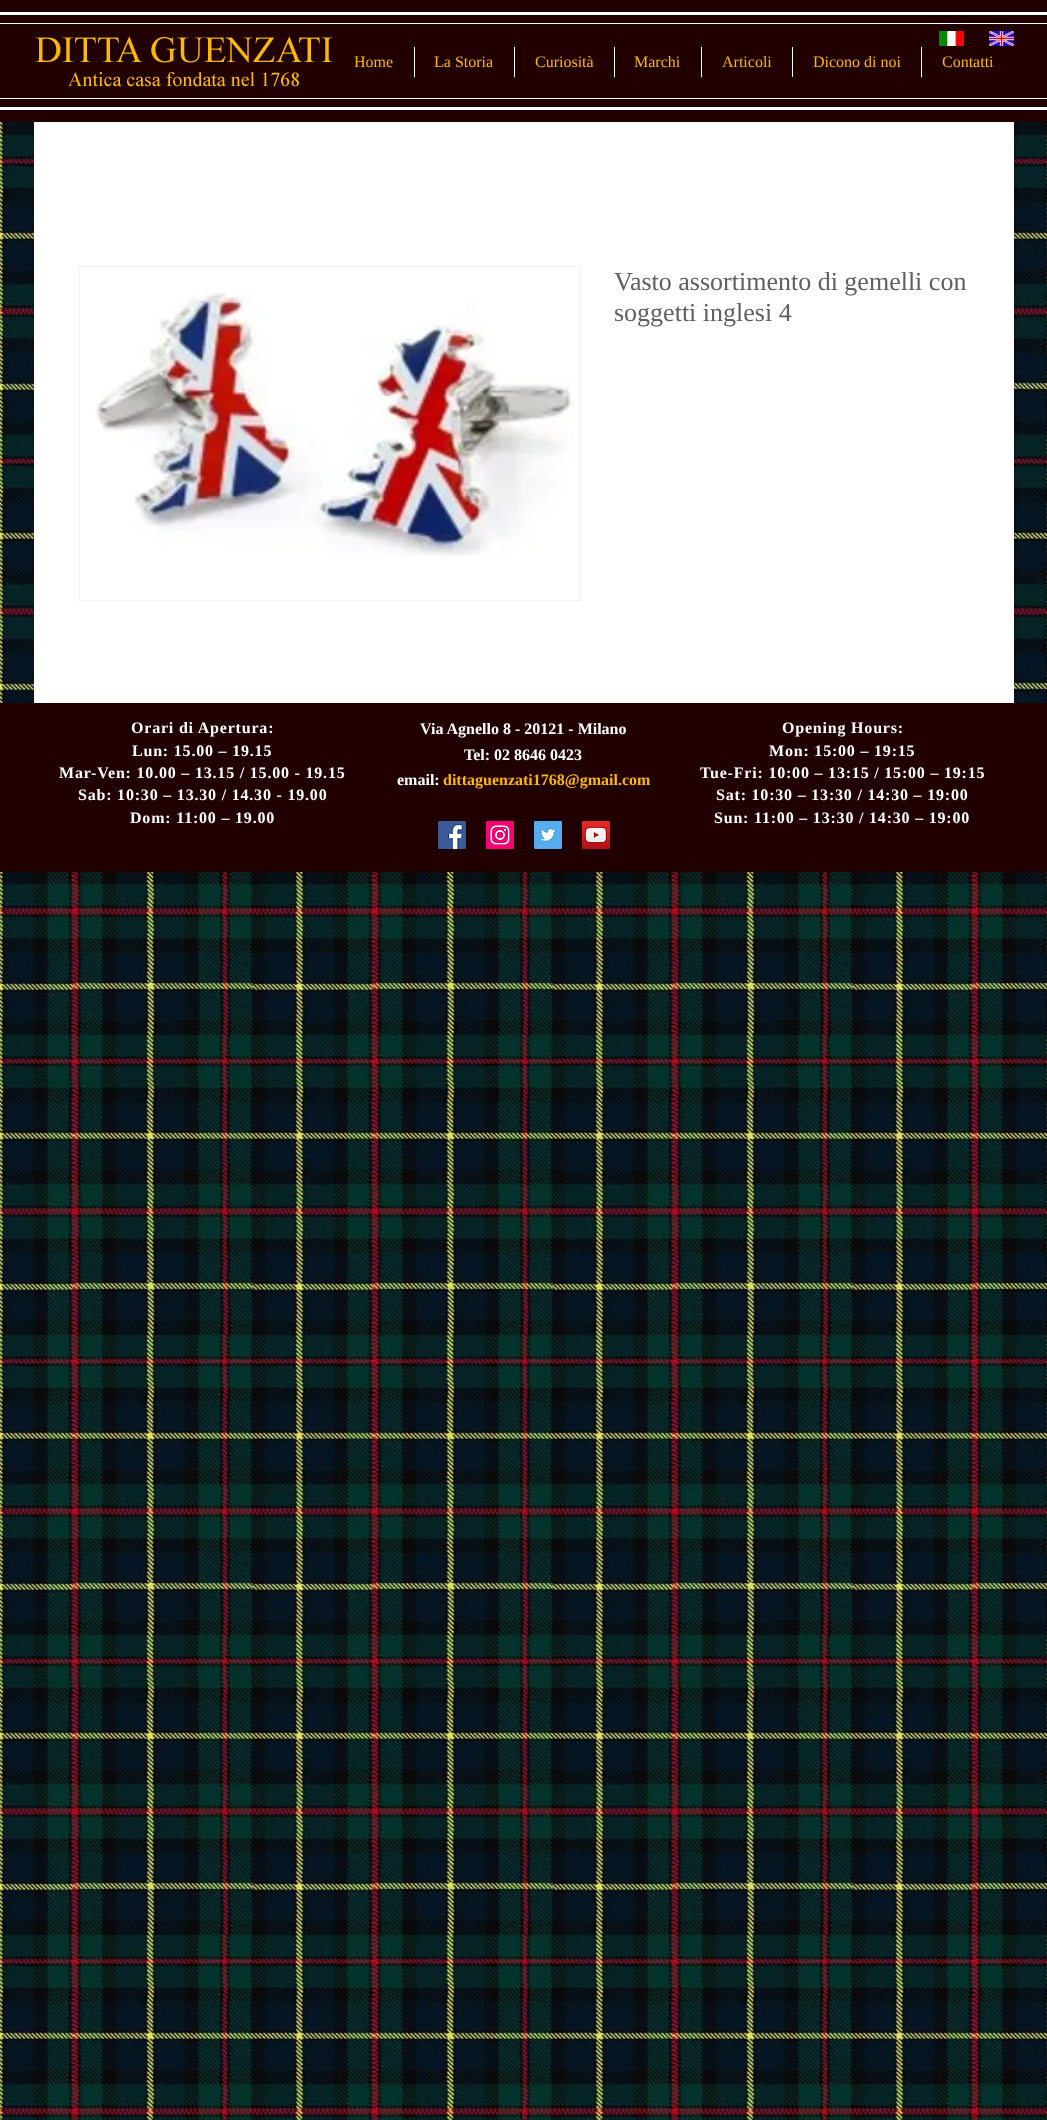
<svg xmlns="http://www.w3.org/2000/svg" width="1047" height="2120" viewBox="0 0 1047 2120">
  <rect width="100%" height="100%" fill="#ffffff"/>
  <rect x="0" y="0" width="1047" height="122" fill="#210001"/>
  <rect x="0" y="12" width="1047" height="3" fill="#ffffff"/>
  <rect x="0" y="107" width="1047" height="3" fill="#ffffff"/>
  <rect x="0" y="23" width="1047" height="1" fill="#ffffff"/>
  <rect x="0" y="98" width="1047" height="1" fill="#ffffff"/>
  <image x="35" y="37" width="298" height="50" href="img1.png"/>
  <image x="939" y="31" width="25" height="15" href="img2.png"/>
  <image x="989" y="31" width="25" height="15" href="img3.png"/>
  <text x="354" y="67" font-family="Liberation Serif" font-size="16" fill="#fbb804">Home</text>
  <rect x="414" y="47" width="1" height="30" fill="#ffffff"/>
  <text x="434" y="67" font-family="Liberation Serif" font-size="16" fill="#fbb804">La Storia</text>
  <rect x="514" y="47" width="1" height="30" fill="#ffffff"/>
  <text x="535" y="67" font-family="Liberation Serif" font-size="16" fill="#fbb804">Curiosità</text>
  <rect x="614" y="47" width="1" height="30" fill="#ffffff"/>
  <text x="634" y="67" font-family="Liberation Serif" font-size="16" fill="#fbb804">Marchi</text>
  <rect x="701" y="47" width="1" height="30" fill="#ffffff"/>
  <text x="722" y="67" font-family="Liberation Serif" font-size="16" fill="#fbb804">Articoli</text>
  <rect x="792" y="47" width="1" height="30" fill="#ffffff"/>
  <text x="813" y="67" font-family="Liberation Serif" font-size="16" fill="#fbb804">Dicono di noi</text>
  <rect x="921" y="47" width="1" height="30" fill="#ffffff"/>
  <text x="942" y="67" font-family="Liberation Serif" font-size="16" fill="#fbb804">Contatti</text>
  <image x="0" y="122" width="1047" height="1998" href="img9.png"/>
  <rect x="34" y="122" width="980" height="581" fill="#ffffff"/>
  <rect x="79.5" y="266.5" width="501" height="334" fill="none" stroke="#f2f2f2"/>
  <image x="95" y="292" width="479" height="265" href="img4.png"/>
  <text x="614" y="290" font-family="Liberation Serif" font-size="26" fill="#606060">Vasto assortimento di gemelli con</text>
  <text x="614" y="321" font-family="Liberation Serif" font-size="26" fill="#606060">soggetti inglesi 4</text>
  <rect x="0" y="703" width="1047" height="169" fill="#210001"/>
  <text x="131" y="733" font-family="Liberation Serif" font-size="16" font-weight="bold" letter-spacing="0.8" fill="#ffffff">Orari di Apertura:</text>
  <text x="132" y="756" font-family="Liberation Serif" font-size="16" font-weight="bold" letter-spacing="0.8" fill="#ffffff">Lun: 15.00 – 19.15</text>
  <text x="59" y="778" font-family="Liberation Serif" font-size="16" font-weight="bold" letter-spacing="0.8" fill="#ffffff">Mar-Ven: 10.00 – 13.15 / 15.00 - 19.15</text>
  <text x="78" y="800" font-family="Liberation Serif" font-size="16" font-weight="bold" letter-spacing="0.8" fill="#ffffff">Sab: 10:30 – 13.30 / 14.30 - 19.00</text>
  <text x="130" y="823" font-family="Liberation Serif" font-size="16" font-weight="bold" letter-spacing="0.8" fill="#ffffff">Dom: 11:00 – 19.00</text>
  <text x="420" y="734" font-family="Liberation Serif" font-size="16" font-weight="bold" fill="#ffffff">Via Agnello 8 - 20121 - Milano</text>
  <text x="464" y="760" font-family="Liberation Serif" font-size="16" font-weight="bold" fill="#ffffff">Tel: 02 8646 0423</text>
  <text x="397" y="785" font-family="Liberation Serif" font-size="16" font-weight="bold" fill="#ffffff">email:</text>
  <text x="443" y="785" font-family="Liberation Serif" font-size="16" font-weight="bold" fill="#fbb804">dittaguenzati1768@gmail.com</text>
  <text x="782" y="733" font-family="Liberation Serif" font-size="16" font-weight="bold" letter-spacing="0.8" fill="#ffffff">Opening Hours:</text>
  <text x="769" y="756" font-family="Liberation Serif" font-size="16" font-weight="bold" letter-spacing="0.8" fill="#ffffff">Mon: 15:00 – 19:15</text>
  <text x="700" y="778" font-family="Liberation Serif" font-size="16" font-weight="bold" letter-spacing="0.8" fill="#ffffff">Tue-Fri: 10:00 – 13:15 / 15:00 – 19:15</text>
  <text x="716" y="800" font-family="Liberation Serif" font-size="16" font-weight="bold" letter-spacing="0.8" fill="#ffffff">Sat: 10:30 – 13:30 / 14:30 – 19:00</text>
  <text x="714" y="823" font-family="Liberation Serif" font-size="16" font-weight="bold" letter-spacing="0.8" fill="#ffffff">Sun: 11:00 – 13:30 / 14:30 – 19:00</text>
  <image x="438" y="821" width="28" height="28" href="img5.png"/>
  <image x="486" y="821" width="28" height="28" href="img6.png"/>
  <image x="534" y="821" width="28" height="28" href="img7.png"/>
  <image x="582" y="821" width="28" height="28" href="img8.png"/>
</svg>
